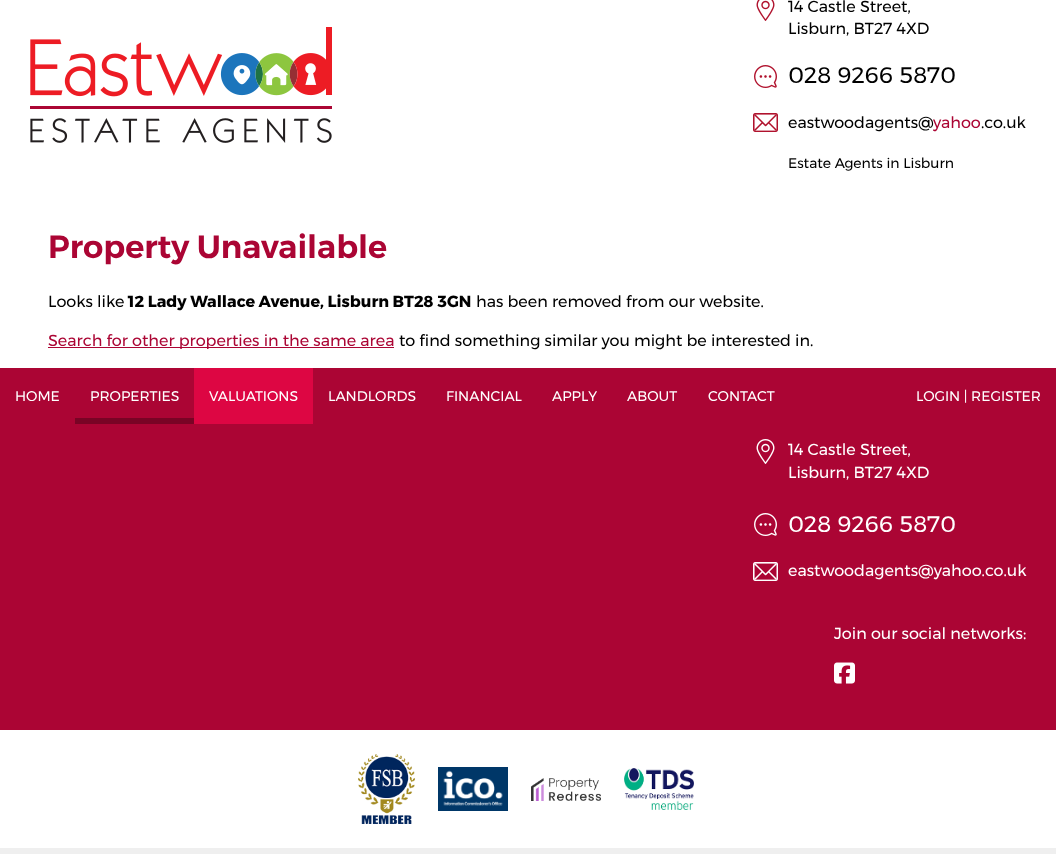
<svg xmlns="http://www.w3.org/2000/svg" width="1056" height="854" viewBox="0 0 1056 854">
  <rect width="100%" height="100%" fill="#ffffff"/>
  <image x="30" y="27" width="302" height="116" href="img1.png"/>
  <image x="756" y="0" width="19" height="21" href="img2.png"/>
  <text x="788" y="12" font-family="Montserrat" font-size="16" fill="#000000">14 Castle Street,</text>
  <text x="788" y="34" font-family="Montserrat" font-size="16" fill="#000000">Lisburn, BT27 4XD</text>
  <image x="754" y="65" width="23" height="23" href="img3.png"/>
  <text x="788" y="83" font-family="Montserrat" font-size="22.5" fill="#000000">028 9266 5870</text>
  <image x="753" y="113" width="25" height="19" href="img4.png"/>
  <text x="788" y="128" font-family="Montserrat" font-size="16" fill="#000000">eastwoodagents@</text>
  <text x="933" y="128" font-family="Montserrat" font-size="16" fill="#ab0534">yahoo</text>
  <text x="981" y="128" font-family="Montserrat" font-size="16" fill="#000000">.co.uk</text>
  <text x="788" y="168" font-family="Montserrat" font-size="14" fill="#000000">Estate Agents in Lisburn</text>
  <text x="48" y="258" font-family="Montserrat" font-size="32" font-weight="600" fill="#ab0534">Property Unavailable</text>
  <text x="48" y="307" font-family="Montserrat" font-size="16" fill="#000000">Looks like</text>
  <text x="128" y="307" font-family="Montserrat" font-size="16" font-weight="bold" fill="#000000">12 Lady Wallace Avenue, Lisburn BT28 3GN</text>
  <text x="476" y="307" font-family="Montserrat" font-size="16" fill="#000000">has been removed from our website.</text>
  <rect x="48" y="347" width="346" height="1" fill="#ab0534"/>
  <text x="48" y="346" font-family="Montserrat" font-size="16" fill="#ab0534">Search for other properties in the same area</text>
  <text x="399" y="346" font-family="Montserrat" font-size="16" fill="#000000">to find something similar you might be interested in.</text>
  <rect x="0" y="368" width="1056" height="362" fill="#ab0534"/>
  <text x="15" y="401" font-family="Montserrat" font-size="14" fill="#ffffff">HOME</text>
  <rect x="75" y="418" width="119" height="6" fill="#790425"/>
  <text x="90" y="401" font-family="Montserrat" font-size="14" fill="#ffffff">PROPERTIES</text>
  <rect x="194" y="368" width="119" height="56" fill="#dd0643"/>
  <text x="209" y="401" font-family="Montserrat" font-size="14" fill="#ffffff">VALUATIONS</text>
  <text x="328" y="401" font-family="Montserrat" font-size="14" fill="#ffffff">LANDLORDS</text>
  <text x="446" y="401" font-family="Montserrat" font-size="14" fill="#ffffff">FINANCIAL</text>
  <text x="552" y="401" font-family="Montserrat" font-size="14" fill="#ffffff">APPLY</text>
  <text x="627" y="401" font-family="Montserrat" font-size="14" fill="#ffffff">ABOUT</text>
  <text x="708" y="401" font-family="Montserrat" font-size="14" fill="#ffffff">CONTACT</text>
  <text x="916" y="401" font-family="Montserrat" font-size="14" fill="#ffffff">LOGIN | REGISTER</text>
  <image x="756" y="439" width="19" height="25" href="img5.png"/>
  <text x="788" y="455" font-family="Montserrat" font-size="16" fill="#ffffff">14 Castle Street,</text>
  <text x="788" y="478" font-family="Montserrat" font-size="16" fill="#ffffff">Lisburn, BT27 4XD</text>
  <image x="754" y="513" width="23" height="23" href="img6.png"/>
  <text x="788" y="532" font-family="Montserrat" font-size="22.5" fill="#ffffff">028 9266 5870</text>
  <image x="753" y="562" width="25" height="19" href="img7.png"/>
  <text x="788" y="576" font-family="Montserrat" font-size="16" fill="#ffffff">eastwoodagents@yahoo.co.uk</text>
  <text x="834" y="639" font-family="Montserrat" font-size="16" fill="#ffffff">Join our social networks:</text>
  <image x="834" y="662" width="21" height="22" href="img8.png"/>
  <image x="358" y="754" width="57" height="70" href="img9.png"/>
  <image x="438" y="767" width="70" height="44" href="img10.png"/>
  <image x="531" y="778" width="70" height="23" href="img11.png"/>
  <image x="624" y="768" width="70" height="42" href="img12.png"/>
  <rect x="0" y="848" width="1056" height="6" fill="#efefef"/>
</svg>
